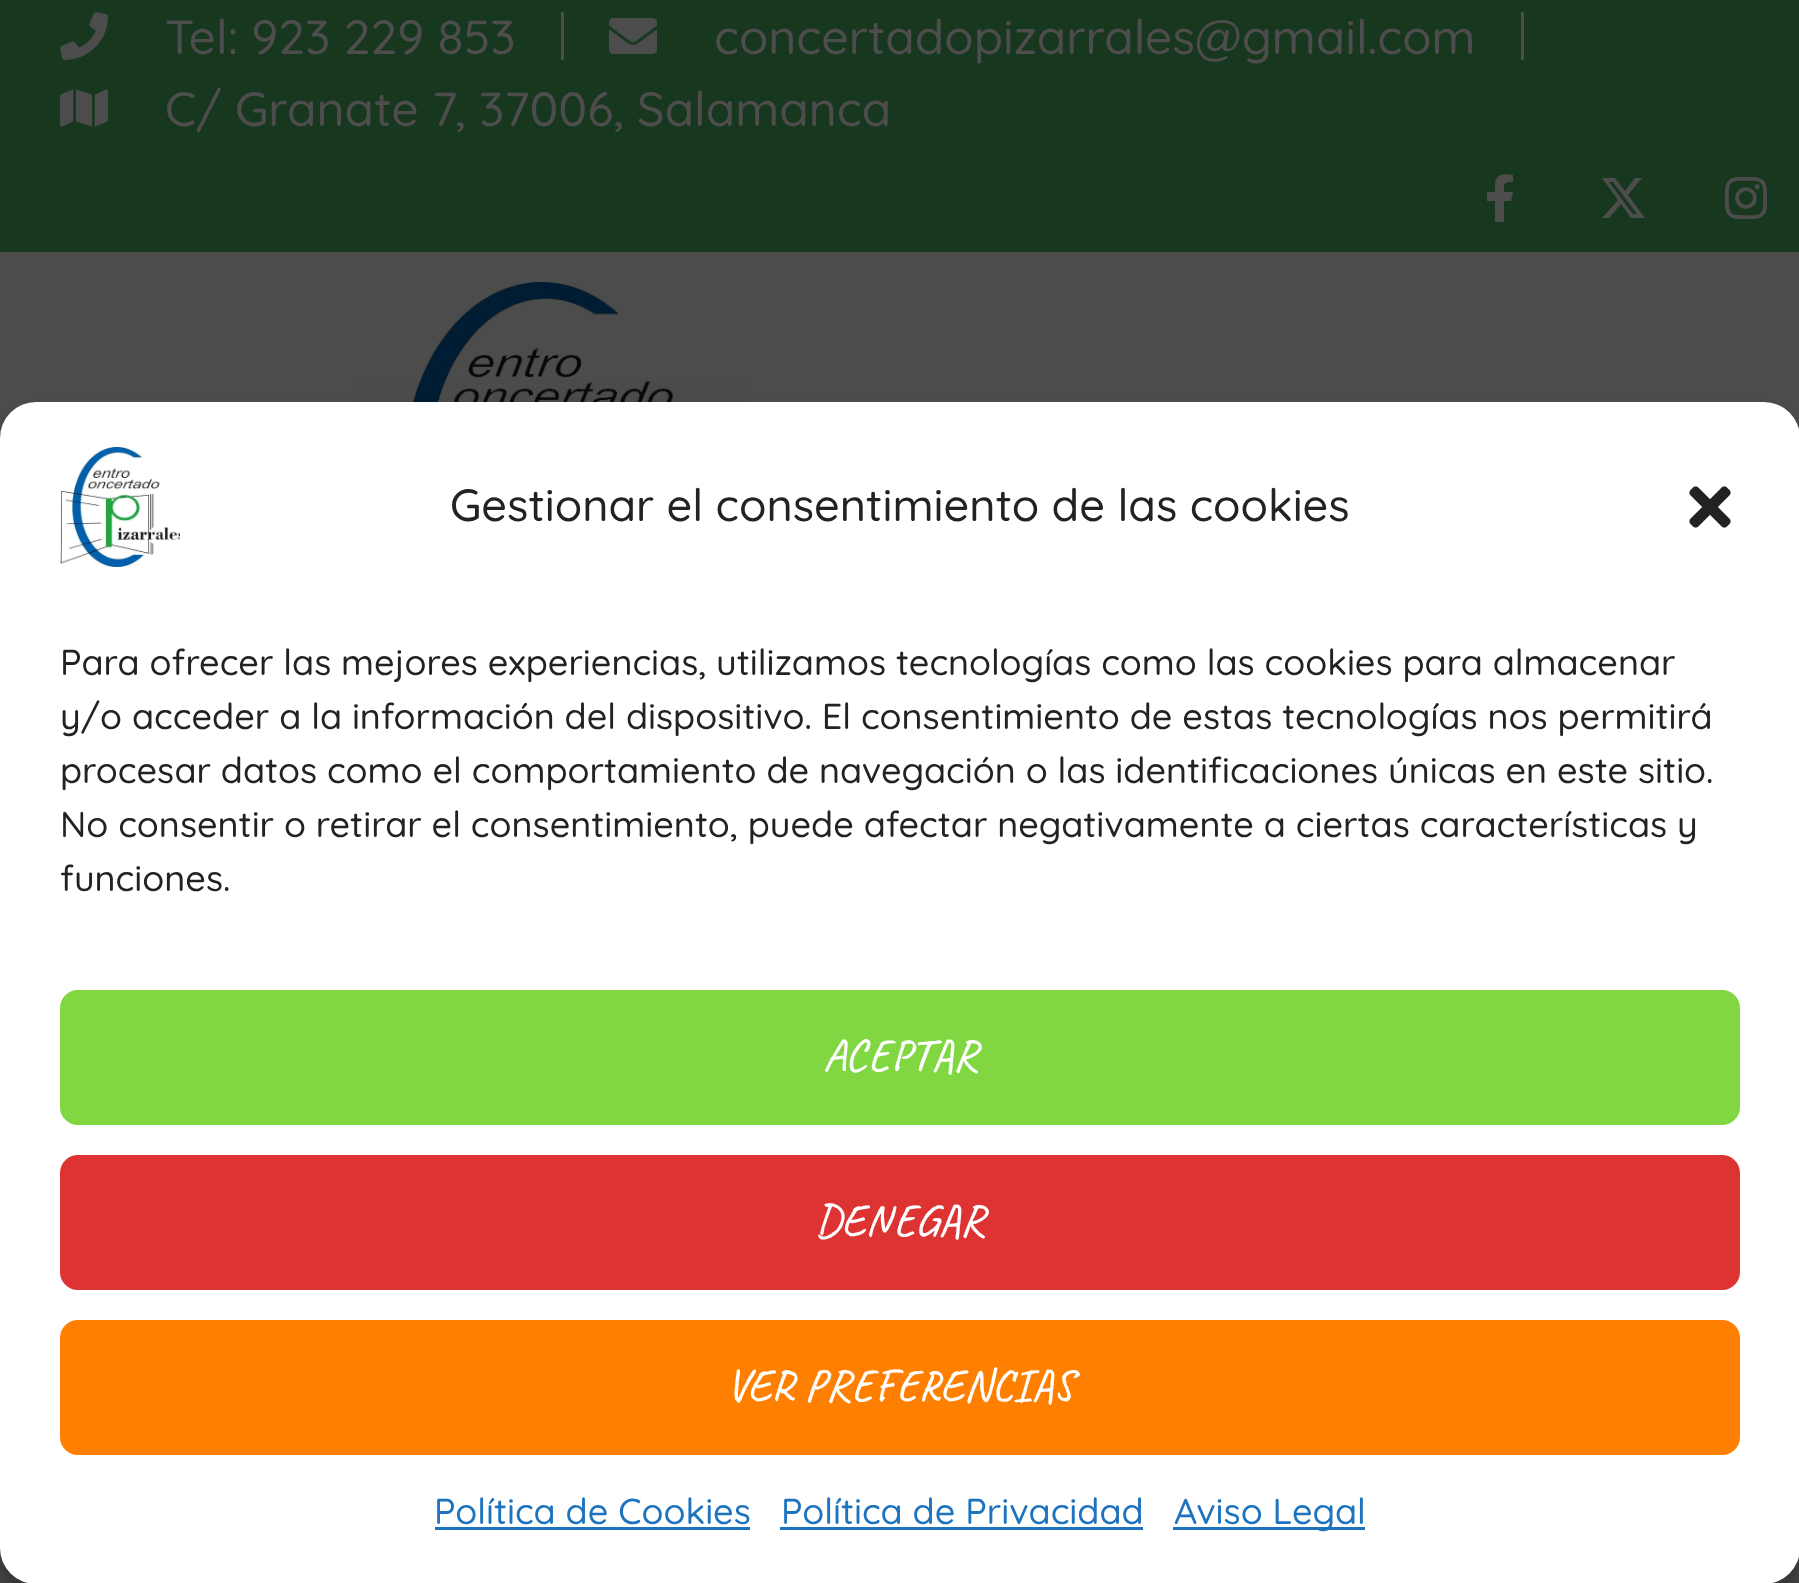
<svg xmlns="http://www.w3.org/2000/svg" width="1799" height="1583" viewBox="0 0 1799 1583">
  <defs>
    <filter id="blur1" x="-50%" y="-200%" width="200%" height="500%"><feGaussianBlur stdDeviation="9"/></filter>
    <filter id="blur2" x="-50%" y="-200%" width="200%" height="500%"><feGaussianBlur stdDeviation="30"/></filter>
  </defs>
  <rect width="100%" height="100%" fill="#4d4d4d"/>
  <rect x="0" y="0" width="1799" height="252" fill="#18371f"/>
  <image x="60" y="12" width="48" height="48" href="img1.png"/>
  <text x="165" y="54" font-family="Quicksand" font-size="48" font-weight="300" fill="#4d4d4d">Tel: 923 229 853</text>
  <rect x="561" y="12" width="3" height="48" fill="#4d4d4d"/>
  <image x="609" y="18" width="48" height="36" href="img2.png"/>
  <text x="714" y="54" font-family="Quicksand" font-size="48" font-weight="300" fill="#4d4d4d">concertadopizarrales@gmail.com</text>
  <rect x="1521" y="12" width="3" height="48" fill="#4d4d4d"/>
  <image x="60" y="89" width="48" height="38" href="img3.png"/>
  <text x="165" y="126" font-family="Quicksand" font-size="48" font-weight="300" fill="#4d4d4d">C/ Granate 7, 37006, Salamanca</text>
  <path d="M1511 201L1513 192H1504C1504 184 1503 182 1513 182V175C1505 173 1496 174 1495 183V192H1487V201H1495V222H1504V201Z" fill="#4d4d4d"/>
  <path d="M1635 178H1642L1628 195L1645 218H1631L1621 204L1609 218H1602L1618 200L1602 178H1615L1625 191ZM1633 214H1637L1613 182H1609Z" fill="#4d4d4d"/>
  <image x="1725" y="177" width="42" height="42" href="img4.png"/>
  <image x="354" y="282" width="396" height="120" href="img5.png"/>
  <rect x="0" y="420" width="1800" height="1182" rx="36" fill="#000000" fill-opacity="0.23" filter="url(#blur1)"/>
  <rect x="0" y="432" width="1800" height="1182" rx="36" fill="#000000" fill-opacity="0.19" filter="url(#blur2)"/>
  <rect x="0" y="402" width="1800" height="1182" rx="36" fill="#ffffff"/>
  <image x="60" y="447" width="120" height="120" href="img6.png"/>
  <text x="450" y="521" font-family="Quicksand" font-size="45" font-weight="300" fill="#222222">Gestionar el consentimiento de las cookies</text>
  <image x="1689" y="486" width="42" height="42" href="img7.png"/>
  <text x="60" y="675" font-family="Quicksand" font-size="36" font-weight="300" fill="#222222">Para ofrecer las mejores experiencias, utilizamos tecnologías como las cookies para almacenar</text>
  <text x="60" y="729" font-family="Quicksand" font-size="36" font-weight="300" fill="#222222">y/o acceder a la información del dispositivo. El consentimiento de estas tecnologías nos permitirá</text>
  <text x="60" y="783" font-family="Quicksand" font-size="36" font-weight="300" fill="#222222">procesar datos como el comportamiento de navegación o las identificaciones únicas en este sitio.</text>
  <text x="60" y="837" font-family="Quicksand" font-size="36" font-weight="300" fill="#222222">No consentir o retirar el consentimiento, puede afectar negativamente a ciertas características y</text>
  <text x="60" y="891" font-family="Quicksand" font-size="36" font-weight="300" fill="#222222">funciones.</text>
  <rect x="61.5" y="991.5" width="1677" height="132" rx="16.5" fill="#81d742" stroke="#81d742" stroke-width="3"/>
  <text x="823" y="1070" font-family="Caveat" font-size="45" font-weight="500" fill="#ffffff">ACEPTAR</text>
  <rect x="61.5" y="1156.5" width="1677" height="132" rx="16.5" fill="#dd3333" stroke="#dd3333" stroke-width="3"/>
  <text x="815" y="1235" font-family="Caveat" font-size="45" font-weight="500" fill="#ffffff">DENEGAR</text>
  <rect x="61.5" y="1321.5" width="1677" height="132" rx="16.5" fill="#ff8000" stroke="#ff8000" stroke-width="3"/>
  <text x="726" y="1400" font-family="Caveat" font-size="45" font-weight="500" fill="#ffffff">VER PREFERENCIAS</text>
  <text x="434" y="1524" font-family="Quicksand" font-size="36" font-weight="300" fill="#1e73be">Política de Cookies</text>
  <rect x="435" y="1527" width="315" height="3" fill="#1e73be"/>
  <text x="781" y="1524" font-family="Quicksand" font-size="36" font-weight="300" fill="#1e73be">Política de Privacidad</text>
  <rect x="780" y="1527" width="363" height="3" fill="#1e73be"/>
  <rect x="1173" y="1527" width="192" height="3" fill="#1e73be"/>
  <text x="1174" y="1524" font-family="Quicksand" font-size="36" font-weight="300" fill="#1e73be">Aviso Legal</text>
</svg>
